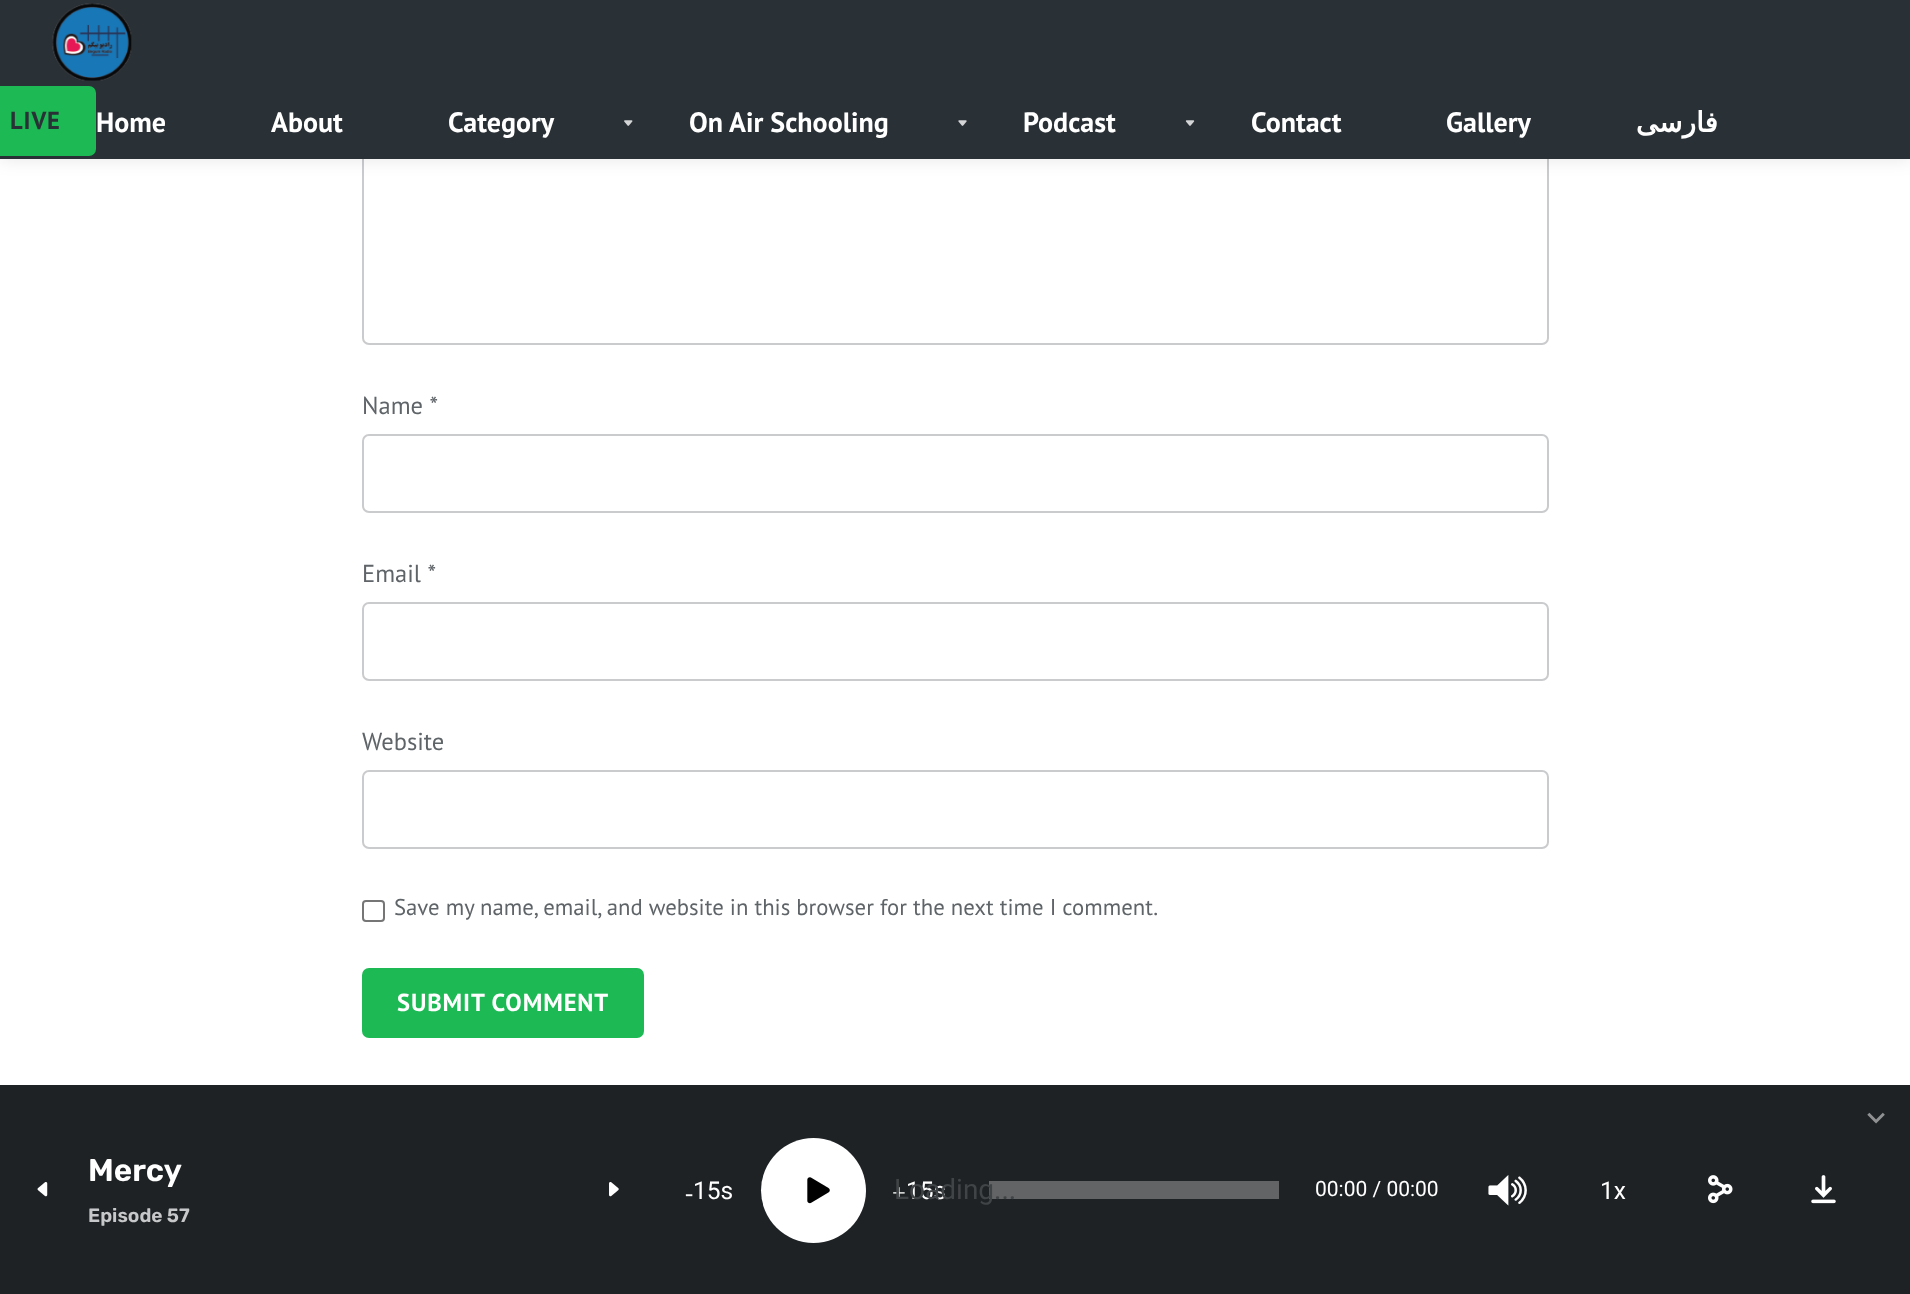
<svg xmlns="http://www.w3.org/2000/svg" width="1910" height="1294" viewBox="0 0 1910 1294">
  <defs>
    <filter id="blur1" x="-50%" y="-200%" width="200%" height="500%"><feGaussianBlur stdDeviation="9"/></filter>
  </defs>
  <rect width="100%" height="100%" fill="#ffffff"/>
  <rect x="363" y="83" width="1185" height="261" rx="6" fill="none" stroke="#cacbcd" stroke-width="2"/>
  <rect x="0" y="0" width="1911" height="159" fill="#000000" fill-opacity="0.1" filter="url(#blur1)"/>
  <rect x="0" y="0" width="1910" height="159" fill="#293036"/>
  <image x="52" y="3" width="80" height="78" href="img1.png"/>
  <rect x="-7" y="86" width="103" height="70" rx="7" fill="#1db954"/>
  <text x="10" y="129" font-family="PT Sans" font-size="24.5" font-weight="bold" letter-spacing="0.9" fill="#293036">LIVE</text>
  <text x="96" y="132" font-family="PT Sans" font-size="28" font-weight="bold" fill="#ffffff">Home</text>
  <text x="271" y="132" font-family="PT Sans" font-size="28" font-weight="bold" fill="#ffffff">About</text>
  <text x="448" y="132" font-family="PT Sans" font-size="28" font-weight="bold" fill="#ffffff">Category</text>
  <image x="624" y="120" width="9" height="6" href="img2.png"/>
  <text x="689" y="132" font-family="PT Sans" font-size="28" font-weight="bold" fill="#ffffff">On Air Schooling</text>
  <image x="958" y="120" width="9" height="6" href="img3.png"/>
  <text x="1023" y="132" font-family="PT Sans" font-size="28" font-weight="bold" fill="#ffffff">Podcast</text>
  <image x="1185" y="120" width="10" height="6" href="img4.png"/>
  <text x="1251" y="132" font-family="PT Sans" font-size="28" font-weight="bold" fill="#ffffff">Contact</text>
  <text x="1446" y="132" font-family="PT Sans" font-size="28" font-weight="bold" fill="#ffffff">Gallery</text>
  <text x="1718" y="132" font-family="DejaVu Sans" font-size="28" font-weight="bold" direction="rtl" fill="#ffffff">فارسی</text>
  <text x="362" y="414" font-family="PT Sans" font-size="24.5" fill="#5f6468">Name *</text>
  <rect x="363" y="435" width="1185" height="77" rx="6" fill="none" stroke="#cacbcd" stroke-width="2"/>
  <text x="362" y="582" font-family="PT Sans" font-size="24.5" fill="#5f6468">Email *</text>
  <rect x="363" y="603" width="1185" height="77" rx="6" fill="none" stroke="#cacbcd" stroke-width="2"/>
  <text x="362" y="750" font-family="PT Sans" font-size="24.5" fill="#5f6468">Website</text>
  <rect x="363" y="771" width="1185" height="77" rx="6" fill="none" stroke="#cacbcd" stroke-width="2"/>
  <rect x="363" y="901" width="21" height="20" rx="3" fill="none" stroke="#767676" stroke-width="2"/>
  <text x="394" y="915" font-family="PT Sans" font-size="22.75" fill="#5f6468">Save my name, email, and website in this browser for the next time I comment.</text>
  <rect x="362" y="968" width="282" height="70" rx="7" fill="#1db954"/>
  <text x="397" y="1011" font-family="PT Sans" font-size="24.5" font-weight="bold" letter-spacing="0.9" fill="#ffffff">SUBMIT COMMENT</text>
  <rect x="0" y="1085" width="1910" height="209" fill="#1e2225"/>
  <text x="1859" y="1132" font-family="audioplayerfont" font-size="35" fill="#8f9192">꤅</text>
  <image x="37" y="1182" width="11" height="15" href="img5.png"/>
  <text x="88" y="1181" font-family="Rubik" font-size="31.5" font-weight="600" fill="#ffffff">Mercy</text>
  <text x="88" y="1222" font-family="Rubik" font-size="19.25" font-weight="600" fill="#c7c8c9">Episode 57</text>
  <image x="609" y="1182" width="10" height="15" href="img6.png"/>
  <text x="685" y="1201" font-family="Liberation Serif" font-size="24.5" fill="#ffffff">-</text>
  <text x="693" y="1199" font-family="Roboto" font-size="24.5" fill="#ffffff">15s</text>
  <circle cx="813.5" cy="1190.5" r="52.5" fill="#ffffff"/>
  <image x="807" y="1177" width="23" height="27" href="img7.png"/>
  <text x="892" y="1201" font-family="Liberation Serif" font-size="24.5" fill="#ffffff">+</text>
  <text x="906" y="1199" font-family="Roboto" font-size="24.5" fill="#ffffff">15s</text>
  <rect x="989" y="1181" width="290" height="18" fill="#626466"/>
  <text x="1315" y="1196" font-family="Roboto" font-size="21" fill="#ffffff">00:00 / 00:00</text>
  <text x="1482" y="1213" font-family="audioplayerfont" font-size="52" fill="#ffffff">꤂</text>
  <text x="1600" y="1199" font-family="Roboto" font-size="24.5" fill="#ffffff">1x</text>
  <image x="1708" y="1175" width="25" height="29" href="img8.png"/>
  <image x="1811" y="1175" width="25" height="29" href="img9.png"/>
  <text x="894" y="1199" font-family="Roboto" font-size="28" fill="#414446">Loading...</text>
</svg>
